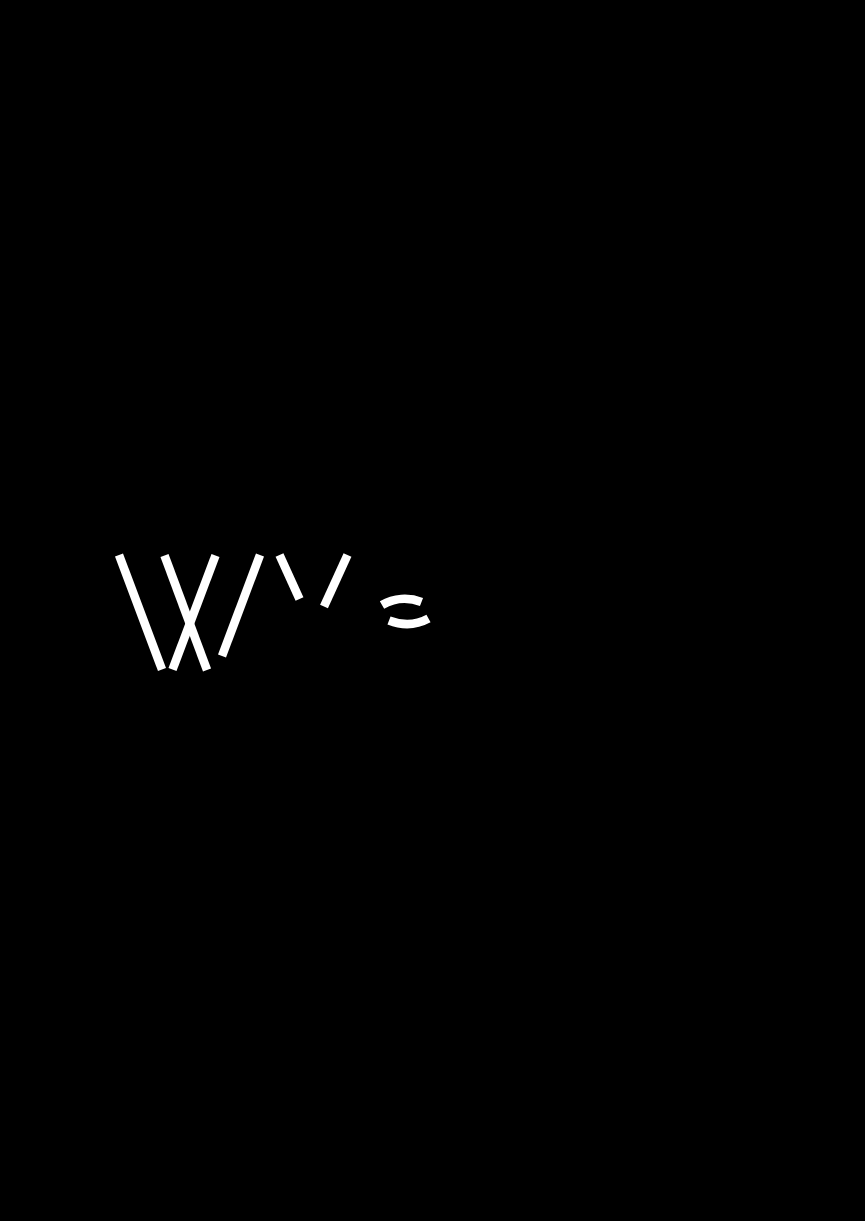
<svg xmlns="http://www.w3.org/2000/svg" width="865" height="1221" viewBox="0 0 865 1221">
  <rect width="100%" height="100%" fill="#000000"/>
  <path d="M382 605C394 598 408.5 597 421.5 602M428.5 618.5C416.5 625 402 625.5 389 620.5" fill="none" stroke="#ffffff" stroke-width="8.6"/>
  <path d="M347.5 555L324 606.5" fill="none" stroke="#ffffff" stroke-width="8.6"/>
  <path d="M279.5 555L299.5 599" fill="none" stroke="#ffffff" stroke-width="8.6"/>
  <path d="M260 555L222 656" fill="none" stroke="#ffffff" stroke-width="8.6"/>
  <path d="M172.5 669.5L215.5 555.5" fill="none" stroke="#ffffff" stroke-width="8.6"/>
  <path d="M207 670L164.5 555.5" fill="none" stroke="#ffffff" stroke-width="8.6"/>
  <path d="M162 669.5L119 555" fill="none" stroke="#ffffff" stroke-width="8.6"/>
</svg>
